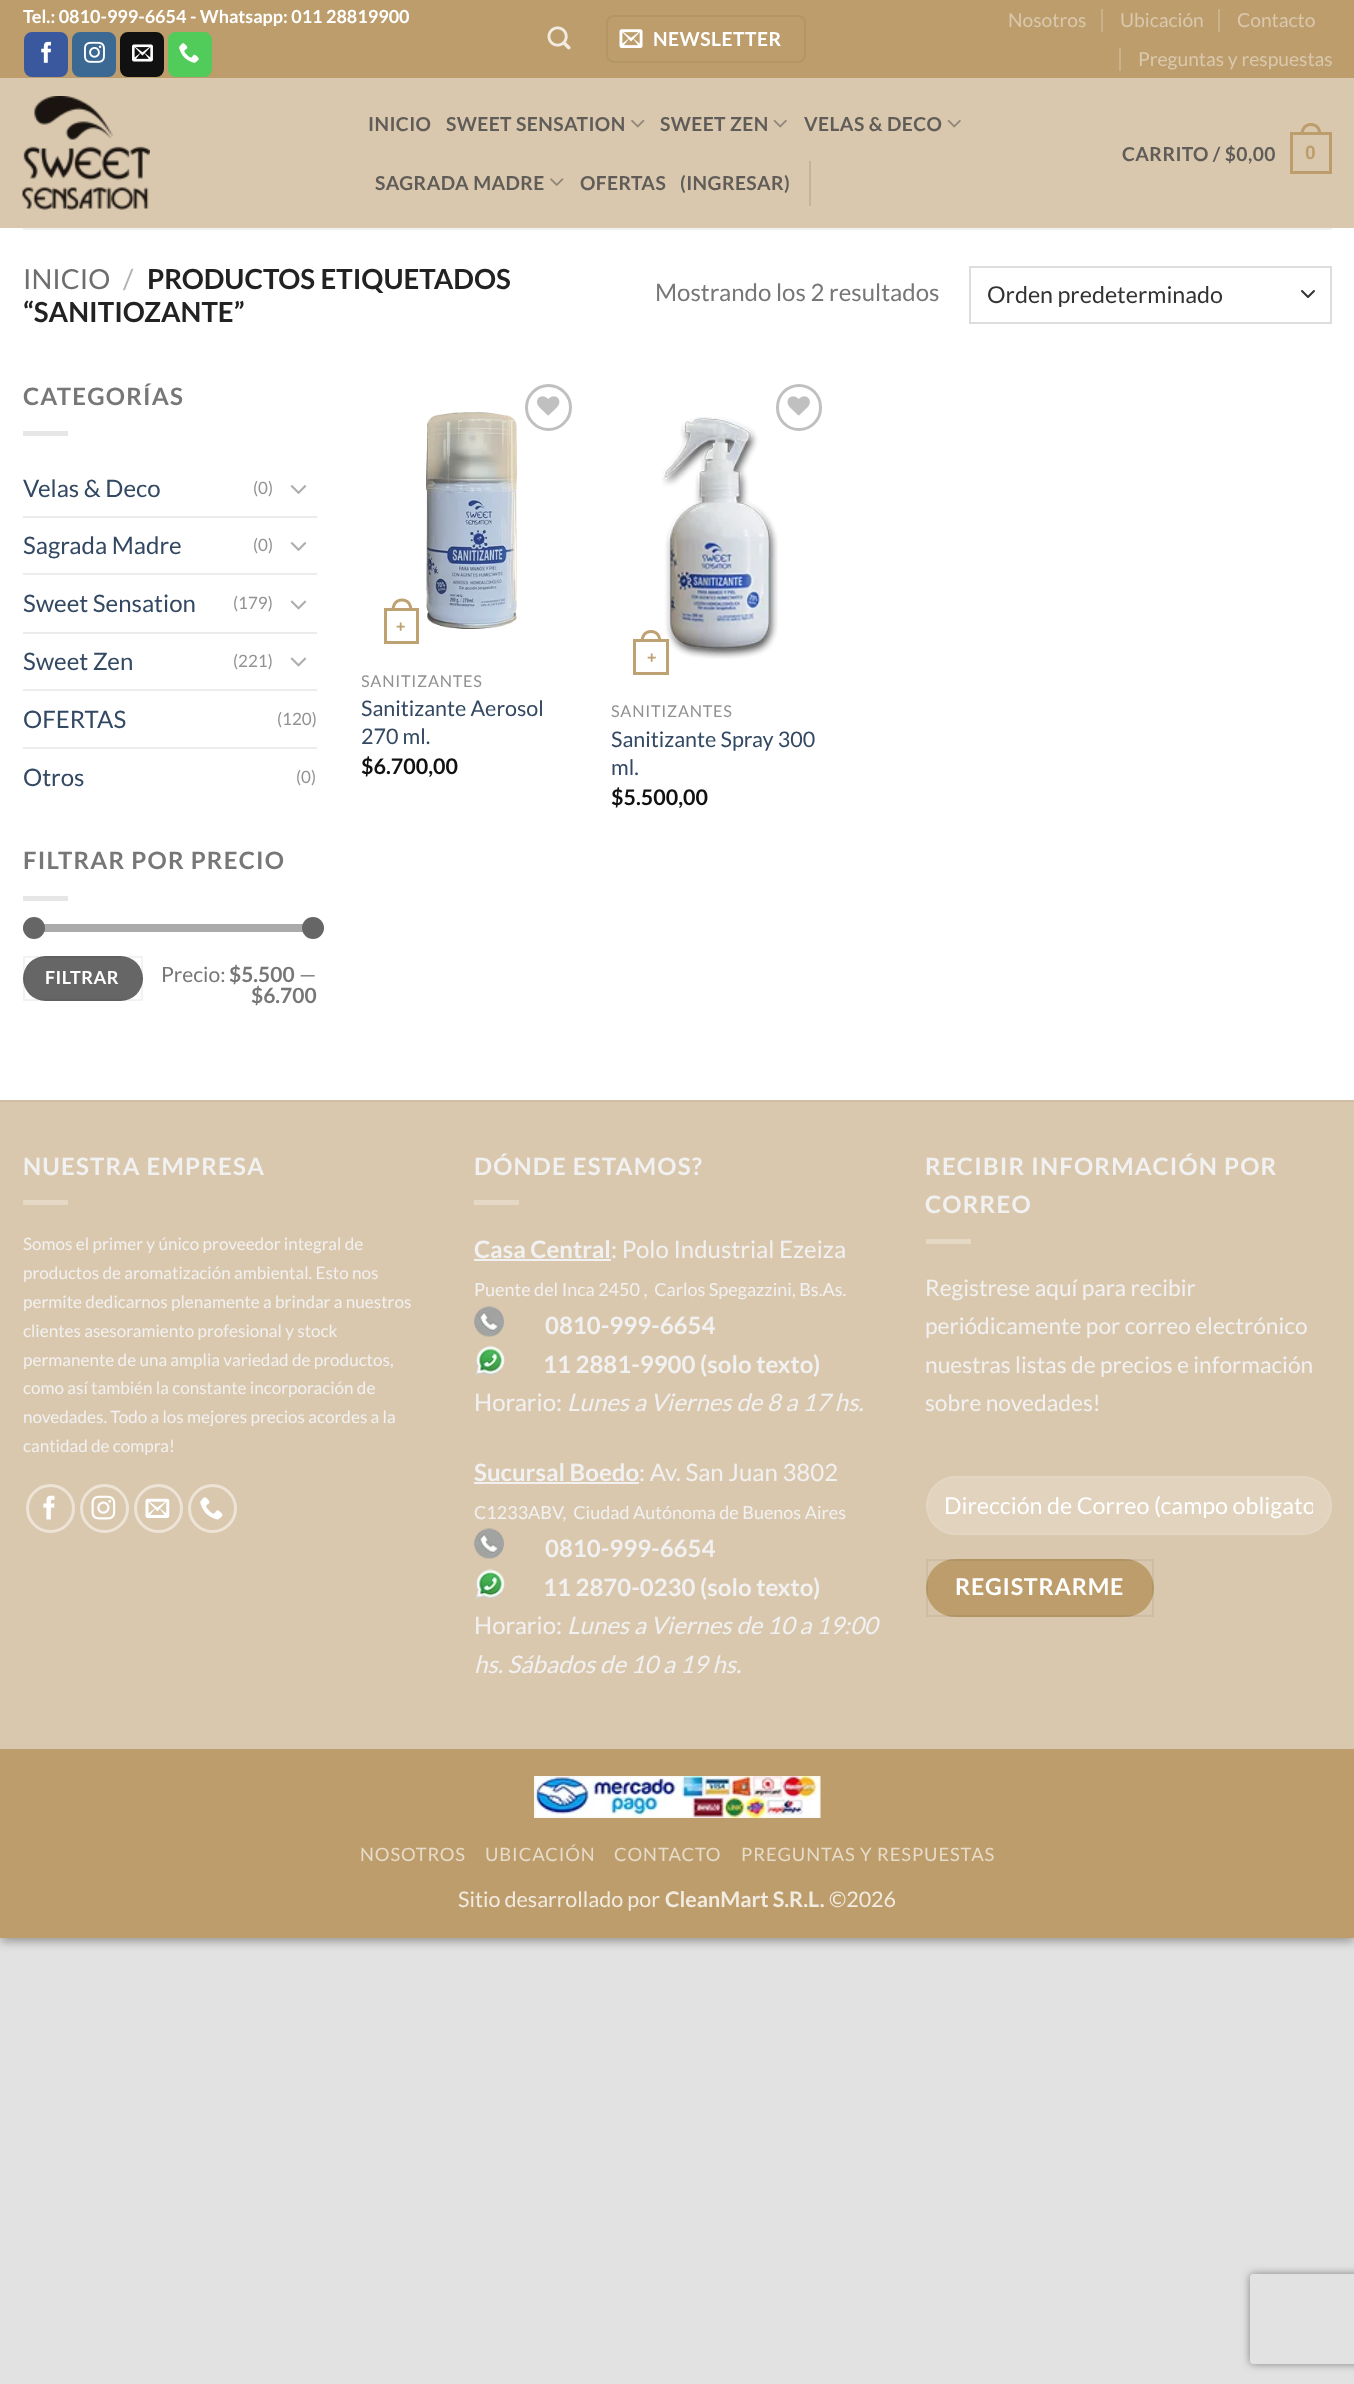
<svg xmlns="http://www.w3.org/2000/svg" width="1354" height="2384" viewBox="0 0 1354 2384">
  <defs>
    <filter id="blur1" x="-50%" y="-200%" width="200%" height="500%"><feGaussianBlur stdDeviation="4.5"/></filter>
    <clipPath id="clip1"><rect x="362" y="672" width="220" height="20"/></clipPath>
    <clipPath id="clip2"><rect x="945" y="1493" width="368" height="27"/></clipPath>
    <clipPath id="clip3"><path d="M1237 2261H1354V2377H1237ZM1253 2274H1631C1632.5 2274 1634 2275.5 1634 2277V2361C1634 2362.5 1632.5 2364 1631 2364H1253C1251.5 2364 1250 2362.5 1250 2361V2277C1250 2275.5 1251.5 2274 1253 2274Z" clip-rule="evenodd"/></clipPath>
    <filter id="blur2" x="-50%" y="-200%" width="200%" height="500%"><feGaussianBlur stdDeviation="4"/></filter>
  </defs>
  <rect width="100%" height="100%" fill="#e2e2e2"/>
  <rect x="0" y="5" width="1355" height="1938" fill="#000000" fill-opacity="0.23" filter="url(#blur1)"/>
  <rect x="6" y="11" width="1343" height="1926" fill="#000000" fill-opacity="0.16" filter="url(#blur1)"/>
  <rect x="0" y="228" width="1354" height="872" fill="#ffffff"/>
  <rect x="0" y="0" width="1354" height="78" fill="#bc9d6b"/>
  <text x="23" y="23" font-family="Lato" font-size="18" font-weight="bold" fill="#ffffff">Tel.: 0810-999-6654 - Whatsapp: 011 28819900</text>
  <rect x="25" y="33" width="42" height="43" rx="7" fill="#3a589d" stroke="#3a589d" stroke-width="2"/>
  <image x="41" y="41" width="10" height="22" href="img1.png"/>
  <rect x="73" y="33" width="42" height="43" rx="7" fill="#3b6994" stroke="#3b6994" stroke-width="2"/>
  <image x="84" y="41" width="21" height="22" href="img2.png"/>
  <rect x="121" y="33" width="42" height="43" rx="7" fill="#111111" stroke="#111111" stroke-width="2"/>
  <image x="132" y="44" width="21" height="18" href="img3.png"/>
  <rect x="169" y="33" width="42" height="43" rx="7" fill="#51cb5a" stroke="#51cb5a" stroke-width="2"/>
  <image x="179" y="43" width="20" height="20" href="img4.png"/>
  <image x="547" y="26" width="24" height="24" href="img5.png"/>
  <rect x="607" y="16" width="198" height="46" rx="7" fill="none" stroke="#b39566" stroke-width="2"/>
  <image x="619" y="29" width="24" height="19" href="img6.png"/>
  <text x="653" y="46" font-family="Lato" font-size="19.25" font-weight="bold" letter-spacing="0.5" fill="#ffffff">NEWSLETTER</text>
  <text x="1008" y="27" font-family="Lato" font-size="19.25" fill="#dac8ae">Nosotros</text>
  <rect x="1101" y="9" width="2" height="23" fill="#c9b189"/>
  <text x="1120" y="27" font-family="Lato" font-size="19.25" fill="#dac8ae">Ubicación</text>
  <rect x="1218" y="9" width="2" height="23" fill="#c9b189"/>
  <text x="1237" y="27" font-family="Lato" font-size="19.25" fill="#dac8ae">Contacto</text>
  <rect x="1119" y="48" width="2" height="23" fill="#c9b189"/>
  <text x="1138" y="66" font-family="Lato" font-size="19.25" fill="#dac8ae">Preguntas y respuestas</text>
  <rect x="0" y="78" width="1354" height="150" fill="#dac8ae"/>
  <image x="22" y="96" width="128" height="114" href="img7.png"/>
  <text x="368" y="131" font-family="Lato" font-size="19.25" font-weight="bold" letter-spacing="0.4" fill="#605d59">INICIO</text>
  <text x="446" y="131" font-family="Lato" font-size="19.25" font-weight="bold" letter-spacing="0.4" fill="#605d59">SWEET SENSATION</text>
  <image x="631" y="119" width="14" height="9" href="img8.png"/>
  <text x="660" y="131" font-family="Lato" font-size="19.25" font-weight="bold" letter-spacing="0.4" fill="#605d59">SWEET ZEN</text>
  <image x="773" y="119" width="14" height="9" href="img9.png"/>
  <text x="804" y="131" font-family="Lato" font-size="19.25" font-weight="bold" letter-spacing="0.4" fill="#605d59">VELAS &amp; DECO</text>
  <image x="947" y="119" width="14" height="9" href="img9.png"/>
  <text x="375" y="190" font-family="Lato" font-size="19.25" font-weight="bold" letter-spacing="0.4" fill="#605d59">SAGRADA MADRE</text>
  <image x="550" y="178" width="14" height="8" href="img10.png"/>
  <text x="580" y="190" font-family="Lato" font-size="19.25" font-weight="bold" letter-spacing="0.4" fill="#605d59">OFERTAS</text>
  <text x="680" y="190" font-family="Lato" font-size="19.25" font-weight="bold" letter-spacing="0.4" fill="#605d59">(INGRESAR)</text>
  <rect x="809" y="161" width="2" height="45" fill="#c4b49d"/>
  <text x="1122" y="161" font-family="Lato" font-size="19.25" font-weight="bold" letter-spacing="0.4" fill="#605d59">CARRITO / $0,00</text>
  <rect x="1291.5" y="133.5" width="39" height="39" fill="none" stroke="#bc9d6b" stroke-width="3"/>
  <path d="M1311 123C1318 123 1321.5 128.5 1321.5 135H1300.5C1300.5 128.5 1304 123 1311 123ZM1311 126C1316.5 126 1318.5 130.5 1318.5 135H1303.5C1303.5 130.5 1305.5 126 1311 126Z" fill="#bc9d6b" fill-rule="evenodd"/>
  <text x="1305" y="159" font-family="Liberation Sans" font-size="19.25" font-weight="bold" letter-spacing="0.4" fill="#bc9d6b">0</text>
  <rect x="23" y="228" width="1309" height="2" fill="#f1f1f1"/>
  <text x="23" y="289" font-family="Lato" font-size="27.6" fill="#6e6e6e">INICIO</text>
  <text x="123" y="289" font-family="Lato" font-size="27.6" fill="#b2b2b2">/</text>
  <text x="147" y="289" font-family="Lato" font-size="27.6" font-weight="bold" fill="#222222">PRODUCTOS ETIQUETADOS</text>
  <text x="23" y="322" font-family="Lato" font-size="27.6" font-weight="bold" fill="#222222">“SANITIOZANTE”</text>
  <text x="655" y="301" font-family="Lato" font-size="24" fill="#777777">Mostrando los 2 resultados</text>
  <path d="M1302 291L1308 297L1314 291" fill="none" stroke="#333333" stroke-width="2" stroke-linecap="round" stroke-linejoin="round"/>
  <rect x="970" y="267" width="361" height="56" fill="none" stroke="#dddddd" stroke-width="2"/>
  <text x="987" y="303" font-family="Lato" font-size="23.25" fill="#333333">Orden predeterminado</text>
  <text x="23" y="405" font-family="Lato" font-size="24" font-weight="bold" letter-spacing="1.2" fill="#777777">CATEGORÍAS</text>
  <rect x="23" y="431" width="45" height="5" fill="#e6e6e6"/>
  <text x="23" y="497" font-family="Lato" font-size="24" fill="#334862">Velas &amp; Deco</text>
  <text x="253" y="494" font-family="Lato" font-size="17" fill="#929292">(0)</text>
  <image x="290" y="485" width="17" height="9" href="img11.png"/>
  <rect x="23" y="516" width="294" height="2" fill="#ececec"/>
  <text x="23" y="554" font-family="Lato" font-size="24" fill="#334862">Sagrada Madre</text>
  <text x="253" y="551" font-family="Lato" font-size="17" fill="#929292">(0)</text>
  <image x="290" y="542" width="17" height="9" href="img11.png"/>
  <rect x="23" y="573" width="294" height="2" fill="#ececec"/>
  <text x="23" y="612" font-family="Lato" font-size="24" fill="#334862">Sweet Sensation</text>
  <text x="233" y="609" font-family="Lato" font-size="17" fill="#929292">(179)</text>
  <image x="290" y="600" width="17" height="10" href="img12.png"/>
  <rect x="23" y="632" width="294" height="2" fill="#ececec"/>
  <text x="23" y="670" font-family="Lato" font-size="24" fill="#334862">Sweet Zen</text>
  <text x="233" y="667" font-family="Lato" font-size="17" fill="#929292">(221)</text>
  <image x="290" y="657" width="17" height="10" href="img12.png"/>
  <rect x="23" y="689" width="294" height="2" fill="#ececec"/>
  <text x="23" y="728" font-family="Lato" font-size="24" fill="#334862">OFERTAS</text>
  <text x="277" y="725" font-family="Lato" font-size="17" fill="#929292">(120)</text>
  <rect x="23" y="747" width="294" height="2" fill="#ececec"/>
  <text x="23" y="786" font-family="Lato" font-size="24" fill="#334862">Otros</text>
  <text x="296" y="783" font-family="Lato" font-size="17" fill="#929292">(0)</text>
  <text x="23" y="869" font-family="Lato" font-size="24" font-weight="bold" letter-spacing="1.2" fill="#777777">FILTRAR POR PRECIO</text>
  <rect x="23" y="896" width="45" height="5" fill="#e6e6e6"/>
  <rect x="23" y="924" width="294" height="8" rx="4" fill="#f1f1f1"/>
  <rect x="23" y="924" width="294" height="8" rx="4" fill="#666666" fill-opacity="0.5"/>
  <circle cx="34" cy="928" r="11" fill="#666666"/>
  <circle cx="313" cy="928" r="11" fill="#666666"/>
  <rect x="23" y="956" width="120" height="45" rx="22.5" fill="#666666"/>
  <rect x="24" y="957" width="118" height="43" fill="none" stroke="#000000" stroke-opacity="0.05" stroke-width="2"/>
  <text x="45" y="984" font-family="Lato" font-size="18" font-weight="bold" letter-spacing="0.5" fill="#ffffff">FILTRAR</text>
  <text x="161" y="982" font-family="Lato" font-size="21" fill="#777777">Precio:</text>
  <text x="229" y="982" font-family="Lato" font-size="21" font-weight="bold" fill="#777777">$5.500</text>
  <text x="299" y="982" font-family="Lato" font-size="21" fill="#777777">—</text>
  <text x="251" y="1003" font-family="Lato" font-size="21" font-weight="bold" fill="#777777">$6.700</text>
  <rect x="385.5" y="609.5" width="32" height="33" fill="none" stroke="#bfa272" stroke-width="3"/>
  <path d="M402 598.5C409 598.5 412.5 604 412.5 610.5H391.5C391.5 604 395 598.5 402 598.5ZM402 601.5C407.5 601.5 409.5 606 409.5 610.5H394.5C394.5 606 396.5 601.5 402 601.5Z" fill="#bfa272" fill-rule="evenodd"/>
  <text x="396" y="632" font-family="Liberation Sans" font-size="16" font-weight="bold" fill="#bfa272">+</text>
  <image x="426" y="412" width="91" height="217" href="img13.png"/>
  <circle cx="548.5" cy="407.5" r="22" fill="none" stroke="#c0c0c0" stroke-width="3"/>
  <image x="537" y="396" width="23" height="20" href="img14.png"/>
  <g clip-path="url(#clip1)">
    <text x="361" y="687" font-family="Lato" font-size="16.25" letter-spacing="0.75" fill="#929292">SANITIZANTES</text>
  </g>
  <text x="361" y="716" font-family="Lato" font-size="21.5" fill="#334862">Sanitizante Aerosol</text>
  <text x="361" y="744" font-family="Lato" font-size="21.5" fill="#334862">270 ml.</text>
  <text x="361" y="774" font-family="Lato" font-size="21.5" font-weight="bold" fill="#111111">$6.700,00</text>
  <image x="662" y="417" width="116" height="242" href="img16.png"/>
  <rect x="777.5" y="385.5" width="43" height="44" rx="21.5" fill="none" stroke="#c0c0c0" stroke-width="3"/>
  <image x="787" y="396" width="23" height="20" href="img15.png"/>
  <rect x="634.5" y="640.5" width="33" height="33" fill="none" stroke="#bc9d6b" stroke-opacity="0.95" stroke-width="3"/>
  <path d="M651 630C658 630 661.5 635.5 661.5 642H640.5C640.5 635.5 644 630 651 630ZM651 633C656.5 633 658.5 637.5 658.5 642H643.5C643.5 637.5 645.5 633 651 633Z" fill="#bfa272" fill-rule="evenodd"/>
  <text x="647" y="663" font-family="Liberation Sans" font-size="16" font-weight="bold" fill="#bfa272">+</text>
  <text x="611" y="717" font-family="Lato" font-size="16.25" letter-spacing="0.75" fill="#929292">SANITIZANTES</text>
  <text x="611" y="747" font-family="Lato" font-size="21.5" fill="#334862">Sanitizante Spray 300</text>
  <text x="611" y="775" font-family="Lato" font-size="21.5" fill="#334862">ml.</text>
  <text x="611" y="805" font-family="Lato" font-size="21.5" font-weight="bold" fill="#111111">$5.500,00</text>
  <rect x="0" y="1102" width="1354" height="647" fill="#dac8ae"/>
  <rect x="0" y="1100" width="1354" height="2" fill="#cfbea5"/>
  <text x="23" y="1175" font-family="Lato" font-size="24" font-weight="bold" letter-spacing="1.2" fill="#f1f1f1">NUESTRA EMPRESA</text>
  <rect x="23" y="1200" width="45" height="5" fill="#e5d9c6"/>
  <text x="23" y="1250" font-family="Lato" font-size="17.1" fill="#f1f1f1">Somos el primer y único proveedor integral de</text>
  <text x="23" y="1279" font-family="Lato" font-size="17.1" fill="#f1f1f1">productos de aromatización ambiental. Esto nos</text>
  <text x="23" y="1308" font-family="Lato" font-size="17.1" fill="#f1f1f1">permite dedicarnos plenamente a brindar a nuestros</text>
  <text x="23" y="1337" font-family="Lato" font-size="17.1" fill="#f1f1f1">clientes asesoramiento profesional y stock</text>
  <text x="23" y="1366" font-family="Lato" font-size="17.1" fill="#f1f1f1">permanente de una amplia variedad de productos,</text>
  <text x="23" y="1394" font-family="Lato" font-size="17.1" fill="#f1f1f1">como así también la constante incorporación de</text>
  <text x="23" y="1423" font-family="Lato" font-size="17.1" fill="#f1f1f1">novedades. Todo a los mejores precios acordes a la</text>
  <text x="23" y="1452" font-family="Lato" font-size="17.1" fill="#f1f1f1">cantidad de compra!</text>
  <circle cx="50.5" cy="1508.5" r="23" fill="none" stroke="#ede4d7" stroke-width="3"/>
  <image x="43" y="1495" width="12" height="25" href="img17.png"/>
  <circle cx="104.5" cy="1508.5" r="23" fill="none" stroke="#ede4d7" stroke-width="3"/>
  <image x="91" y="1495" width="25" height="25" href="img18.png"/>
  <circle cx="158.5" cy="1508.5" r="23" fill="none" stroke="#ede4d7" stroke-width="3"/>
  <image x="145" y="1498" width="25" height="20" href="img19.png"/>
  <circle cx="212.5" cy="1508.5" r="23" fill="none" stroke="#ede4d7" stroke-width="3"/>
  <image x="200" y="1497" width="23" height="23" href="img20.png"/>
  <text x="474" y="1175" font-family="Lato" font-size="24" font-weight="bold" letter-spacing="1.2" fill="#f1f1f1">DÓNDE ESTAMOS?</text>
  <rect x="474" y="1200" width="45" height="5" fill="#e5d9c6"/>
  <text x="474" y="1258" font-family="Lato" font-size="24" font-weight="bold" fill="#f1f1f1">Casa Central</text>
  <rect x="474" y="1259" width="137" height="2" fill="#f1f1f1"/>
  <text x="611" y="1258" font-family="Lato" font-size="24" fill="#f1f1f1">: Polo Industrial Ezeiza</text>
  <text x="474" y="1296" font-family="Lato" font-size="18" fill="#f1f1f1" xml:space="preserve">Puente del Inca 2450 ,  Carlos Spegazzini, Bs.As.</text>
  <image x="474" y="1306" width="30" height="31" href="img21.png"/>
  <text x="545" y="1334" font-family="Lato" font-size="24" font-weight="bold" fill="#f1f1f1">0810-999-6654</text>
  <image x="475" y="1345" width="30" height="31" href="img22.png"/>
  <text x="543" y="1373" font-family="Lato" font-size="24" font-weight="bold" fill="#f1f1f1">11 2881-9900 (solo texto)</text>
  <text x="474" y="1411" font-family="Lato" font-size="24" fill="#f1f1f1">Horario:</text>
  <text x="567" y="1411" font-family="Lato" font-size="24" font-style="italic" fill="#f1f1f1">Lunes a Viernes de 8 a 17 hs.</text>
  <text x="474" y="1481" font-family="Lato" font-size="24" font-weight="bold" fill="#f1f1f1">Sucursal Boedo</text>
  <rect x="474" y="1482" width="165" height="2" fill="#f1f1f1"/>
  <text x="639" y="1481" font-family="Lato" font-size="24" fill="#f1f1f1">: Av. San Juan 3802</text>
  <text x="474" y="1519" font-family="Lato" font-size="18" fill="#f1f1f1" xml:space="preserve">C1233ABV,  Ciudad Autónoma de Buenos Aires</text>
  <image x="474" y="1528" width="30" height="31" href="img21.png"/>
  <text x="545" y="1557" font-family="Lato" font-size="24" font-weight="bold" fill="#f1f1f1">0810-999-6654</text>
  <image x="475" y="1568" width="30" height="32" href="img23.png"/>
  <text x="543" y="1596" font-family="Lato" font-size="24" font-weight="bold" fill="#f1f1f1">11 2870-0230 (solo texto)</text>
  <text x="474" y="1634" font-family="Lato" font-size="24" fill="#f1f1f1">Horario:</text>
  <text x="567" y="1634" font-family="Lato" font-size="24" font-style="italic" fill="#f1f1f1">Lunes a Viernes de 10 a 19:00</text>
  <text x="474" y="1673" font-family="Lato" font-size="24" font-style="italic" fill="#f1f1f1">hs. Sábados de 10 a 19 hs.</text>
  <text x="925" y="1175" font-family="Lato" font-size="24" font-weight="bold" letter-spacing="1.2" fill="#f1f1f1">RECIBIR INFORMACIÓN POR</text>
  <text x="925" y="1213" font-family="Lato" font-size="24" font-weight="bold" letter-spacing="1.2" fill="#f1f1f1">CORREO</text>
  <rect x="926" y="1239" width="45" height="5" fill="#e5d9c6"/>
  <text x="925" y="1296" font-family="Lato" font-size="22.75" fill="#f1f1f1">Registrese aquí para recibir</text>
  <text x="925" y="1334" font-family="Lato" font-size="22.75" fill="#f1f1f1">periódicamente por correo electrónico</text>
  <text x="925" y="1373" font-family="Lato" font-size="22.75" fill="#f1f1f1">nuestras listas de precios e información</text>
  <text x="925" y="1411" font-family="Lato" font-size="22.75" fill="#f1f1f1">sobre novedades!</text>
  <rect x="926" y="1476" width="406" height="59" rx="29.5" fill="#e1d3be"/>
  <rect x="927" y="1477" width="404" height="57" rx="28.5" fill="none" stroke="#ffffff" stroke-opacity="0.09" stroke-width="2"/>
  <g clip-path="url(#clip2)">
    <text x="944" y="1514" font-family="Lato" font-size="23.25" fill="#ffffff">Dirección de Correo (campo obligato</text>
  </g>
  <rect x="926" y="1559" width="228" height="58" rx="29" fill="#bc9d6b"/>
  <rect x="927" y="1560" width="226" height="56" fill="none" stroke="#000000" stroke-opacity="0.05" stroke-width="2"/>
  <text x="955" y="1595" font-family="Lato" font-size="23.25" font-weight="bold" letter-spacing="0.75" fill="#ffffff">REGISTRARME</text>
  <rect x="0" y="1749" width="1354" height="189" fill="#bc9d6b"/>
  <image x="534" y="1776" width="287" height="42" href="img24.png"/>
  <text x="360" y="1861" font-family="Lato" font-size="18.4" letter-spacing="0.9" fill="#e7dbc9">NOSOTROS</text>
  <text x="485" y="1861" font-family="Lato" font-size="18.4" letter-spacing="0.9" fill="#e7dbc9">UBICACIÓN</text>
  <text x="614" y="1861" font-family="Lato" font-size="18.4" letter-spacing="0.9" fill="#e7dbc9">CONTACTO</text>
  <text x="741" y="1861" font-family="Lato" font-size="18.4" letter-spacing="0.9" fill="#e7dbc9">PREGUNTAS Y RESPUESTAS</text>
  <text x="458" y="1907" font-family="Lato" font-size="21.5" fill="#f2ebe1">Sitio desarrollado por</text>
  <text x="665" y="1907" font-family="Lato" font-size="21.5" font-weight="bold" fill="#f2ebe1">CleanMart S.R.L.</text>
  <text x="829" y="1907" font-family="Lato" font-size="21.5" fill="#f2ebe1">©2026</text>
  <g clip-path="url(#clip3)">
    <rect x="1250" y="2274" width="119" height="90" rx="3" fill="#808080" filter="url(#blur2)"/>
  </g>
</svg>
